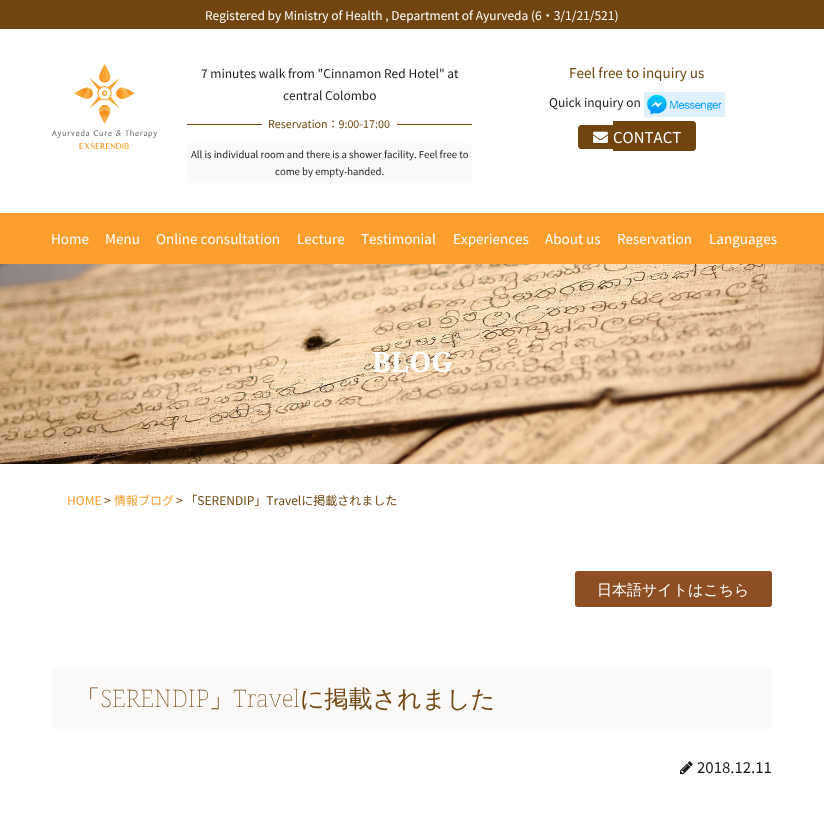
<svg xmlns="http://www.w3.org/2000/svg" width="824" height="822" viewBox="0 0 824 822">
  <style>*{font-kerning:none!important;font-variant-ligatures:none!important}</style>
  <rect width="100%" height="100%" fill="#ffffff"/>
  <rect x="0" y="0" width="824" height="29" fill="#71450f"/>
  <text x="205" y="20" font-family="Noto Sans JP" font-size="12" font-weight="100" fill="#ffffff">Registered by Ministry of Health , Department of Ayurveda (6・3/1/21/521)</text>
  <image x="52" y="64" width="105" height="85" href="img1.png"/>
  <text x="201" y="78" font-family="Noto Sans JP" font-size="12" font-weight="100" fill="#1a1a1a">7 minutes walk from "Cinnamon Red Hotel" at</text>
  <text x="283" y="100" font-family="Noto Sans JP" font-size="12" font-weight="100" fill="#1a1a1a">central Colombo</text>
  <rect x="187" y="124" width="75" height="1" fill="#71450f"/>
  <text x="268" y="128" font-family="Noto Sans JP" font-size="10.75" font-weight="100" fill="#71450f">Reservation：9:00-17:00</text>
  <rect x="397" y="124" width="75" height="1" fill="#71450f"/>
  <rect x="187" y="143" width="285" height="40" rx="3" fill="#fcfaf8"/>
  <text x="191" y="158" font-family="Noto Sans JP" font-size="9.6" font-weight="100" fill="#1a1a1a">All is individual room and there is a shower facility. Feel free to</text>
  <text x="275" y="175" font-family="Noto Sans JP" font-size="9.6" font-weight="100" fill="#1a1a1a">come by empty-handed.</text>
  <text x="569" y="78" font-family="Noto Sans JP" font-size="13.5" font-weight="100" fill="#71450f">Feel free to inquiry us</text>
  <text x="549" y="107" font-family="Noto Sans JP" font-size="12" font-weight="100" fill="#1a1a1a">Quick inquiry on</text>
  <image x="644" y="92" width="81" height="25" href="img2.png"/>
  <path d="M581 125H613V149H581C579.5 149 578 147.5 578 146V128C578 126.5 579.5 125 581 125Z" fill="#71450f"/>
  <path d="M613 121H693C694.5 121 696 122.5 696 124V148C696 149.5 694.5 151 693 151H613Z" fill="#71450f"/>
  <image x="593" y="131" width="15" height="12" href="img3.png"/>
  <text x="613" y="143" font-family="Noto Sans JP" font-size="15" font-weight="100" fill="#ffffff">CONTACT</text>
  <rect x="0" y="213" width="824" height="51" fill="#fe9e2c"/>
  <text x="51" y="244" font-family="Noto Sans JP" font-size="13.5" font-weight="100" fill="#ffffff">Home</text>
  <text x="105" y="244" font-family="Noto Sans JP" font-size="13.5" font-weight="100" fill="#ffffff">Menu</text>
  <text x="156" y="244" font-family="Noto Sans JP" font-size="13.5" font-weight="100" fill="#ffffff">Online consultation</text>
  <text x="297" y="244" font-family="Noto Sans JP" font-size="13.5" font-weight="100" fill="#ffffff">Lecture</text>
  <text x="361" y="244" font-family="Noto Sans JP" font-size="13.5" font-weight="100" fill="#ffffff">Testimonial</text>
  <text x="453" y="244" font-family="Noto Sans JP" font-size="13.5" font-weight="100" fill="#ffffff">Experiences</text>
  <text x="545" y="244" font-family="Noto Sans JP" font-size="13.5" font-weight="100" fill="#ffffff">About us</text>
  <text x="617" y="244" font-family="Noto Sans JP" font-size="13.5" font-weight="100" fill="#ffffff">Reservation</text>
  <text x="709" y="244" font-family="Noto Sans JP" font-size="13.5" font-weight="100" fill="#ffffff">Languages</text>
  <image x="0" y="264" width="824" height="200" href="img4.png"/>
  <text x="372" y="372" font-family="Noto Serif" font-size="28" font-weight="bold" fill="#ffffff">BLOG</text>
  <text x="67" y="505" font-family="Noto Sans JP" font-size="12" font-weight="100" fill="#fe9e2c">HOME</text>
  <text x="104" y="505" font-family="Noto Sans JP" font-size="12" font-weight="100" fill="#71450f">&gt;</text>
  <text x="114" y="505" font-family="Noto Sans JP" font-size="12" font-weight="100" fill="#fe9e2c">情報ブログ</text>
  <text x="176" y="505" font-family="Noto Sans JP" font-size="12" font-weight="100" fill="#71450f">&gt; 「SERENDIP」Travelに掲載されました</text>
  <rect x="575" y="571" width="197" height="36" rx="3" fill="#8c4e22"/>
  <text x="597" y="595" font-family="WenQuanYi Zen Hei" font-size="15" font-weight="500" fill="#ffffff">日本語サイトはこちら</text>
  <rect x="52" y="667" width="720" height="62" rx="3" fill="#fcfaf8"/>
  <text x="76" y="707" font-family="WenQuanYi Zen Hei" font-size="24" font-weight="500" fill="#71450f">「</text>
  <text x="100" y="707" font-family="Noto Serif" font-size="24" font-weight="100" fill="#71450f">SERENDIP</text>
  <text x="209" y="707" font-family="WenQuanYi Zen Hei" font-size="24" font-weight="500" fill="#71450f">」</text>
  <text x="233" y="707" font-family="Noto Serif" font-size="24" font-weight="100" fill="#71450f">Travel</text>
  <text x="300" y="707" font-family="WenQuanYi Zen Hei" font-size="24" font-weight="500" fill="#71450f">に掲載されました</text>
  <image x="680" y="761" width="13" height="14" href="img5.png"/>
  <text x="697" y="773" font-family="Noto Sans JP" font-size="15" font-weight="100" fill="#1a1a1a">2018.12.11</text>
</svg>
